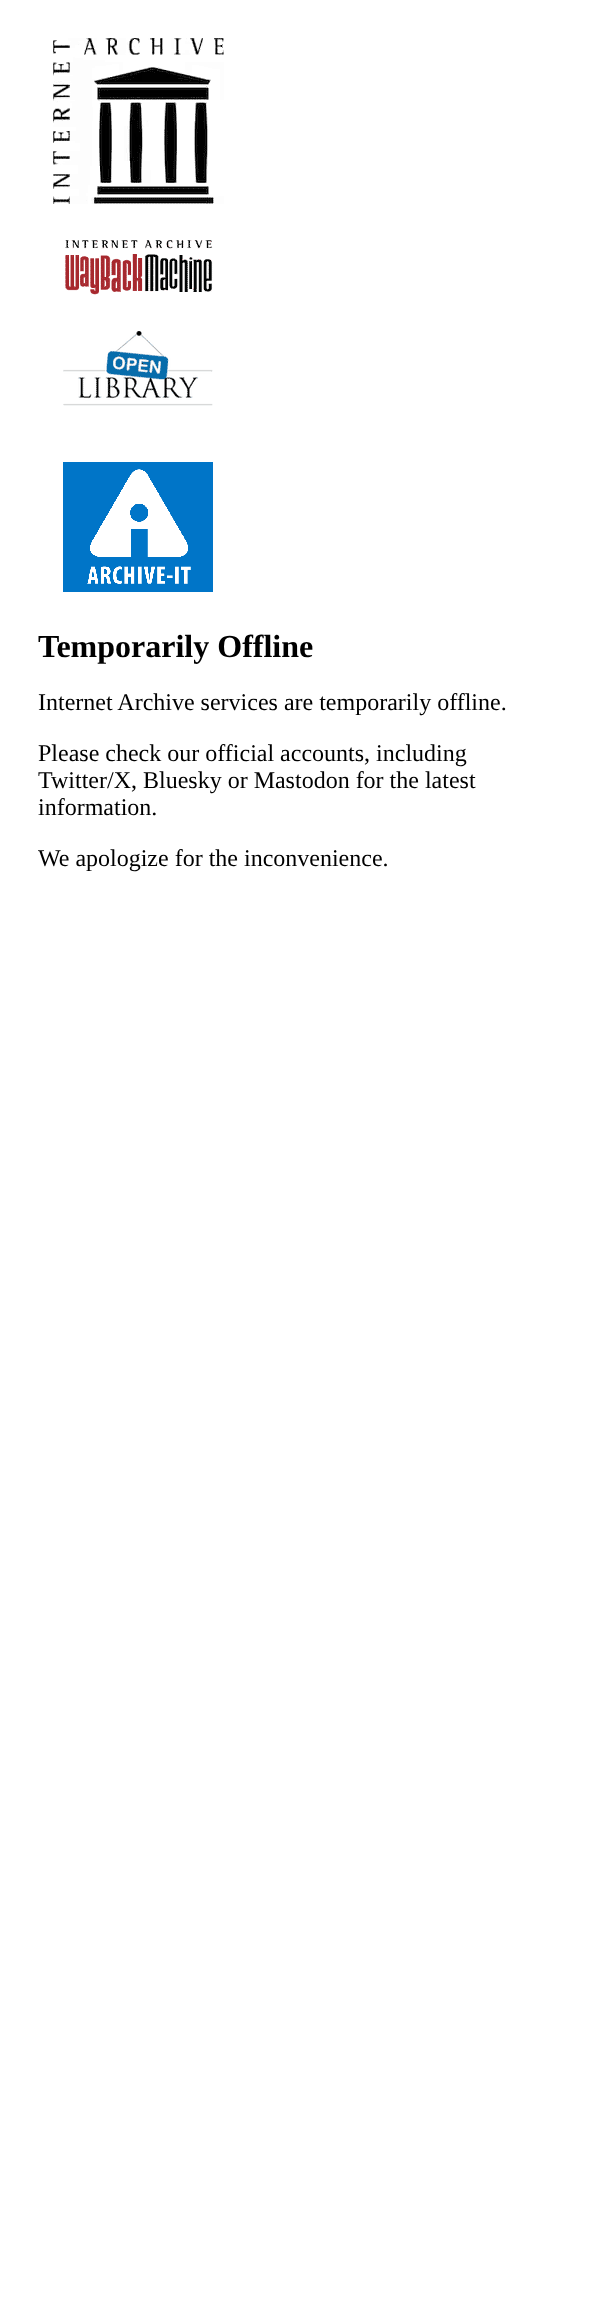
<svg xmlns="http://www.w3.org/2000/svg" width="616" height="2317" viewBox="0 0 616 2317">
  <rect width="100%" height="100%" fill="#ffffff"/>
  <image x="53" y="38" width="171" height="166" href="img1.png"/>
  <image x="65" y="240" width="148" height="55" href="img2.png"/>
  <image x="63" y="331" width="150" height="75" href="img3.png"/>
  <image x="63" y="462" width="150" height="130" href="img4.png"/>
  <text x="38" y="657" font-family="Liberation Serif" font-size="32" font-weight="bold" fill="#000000">Temporarily Offline</text>
  <text x="38" y="710" font-family="Liberation Serif" font-size="24" fill="#000000">Internet Archive services are temporarily offline.</text>
  <text x="38" y="761" font-family="Liberation Serif" font-size="24" fill="#000000">Please check our official accounts, including</text>
  <text x="38" y="788" font-family="Liberation Serif" font-size="24" fill="#000000">Twitter/X, Bluesky or Mastodon for the latest</text>
  <text x="38" y="815" font-family="Liberation Serif" font-size="24" fill="#000000">information.</text>
  <text x="38" y="866" font-family="Liberation Serif" font-size="24" fill="#000000">We apologize for the inconvenience.</text>
</svg>
